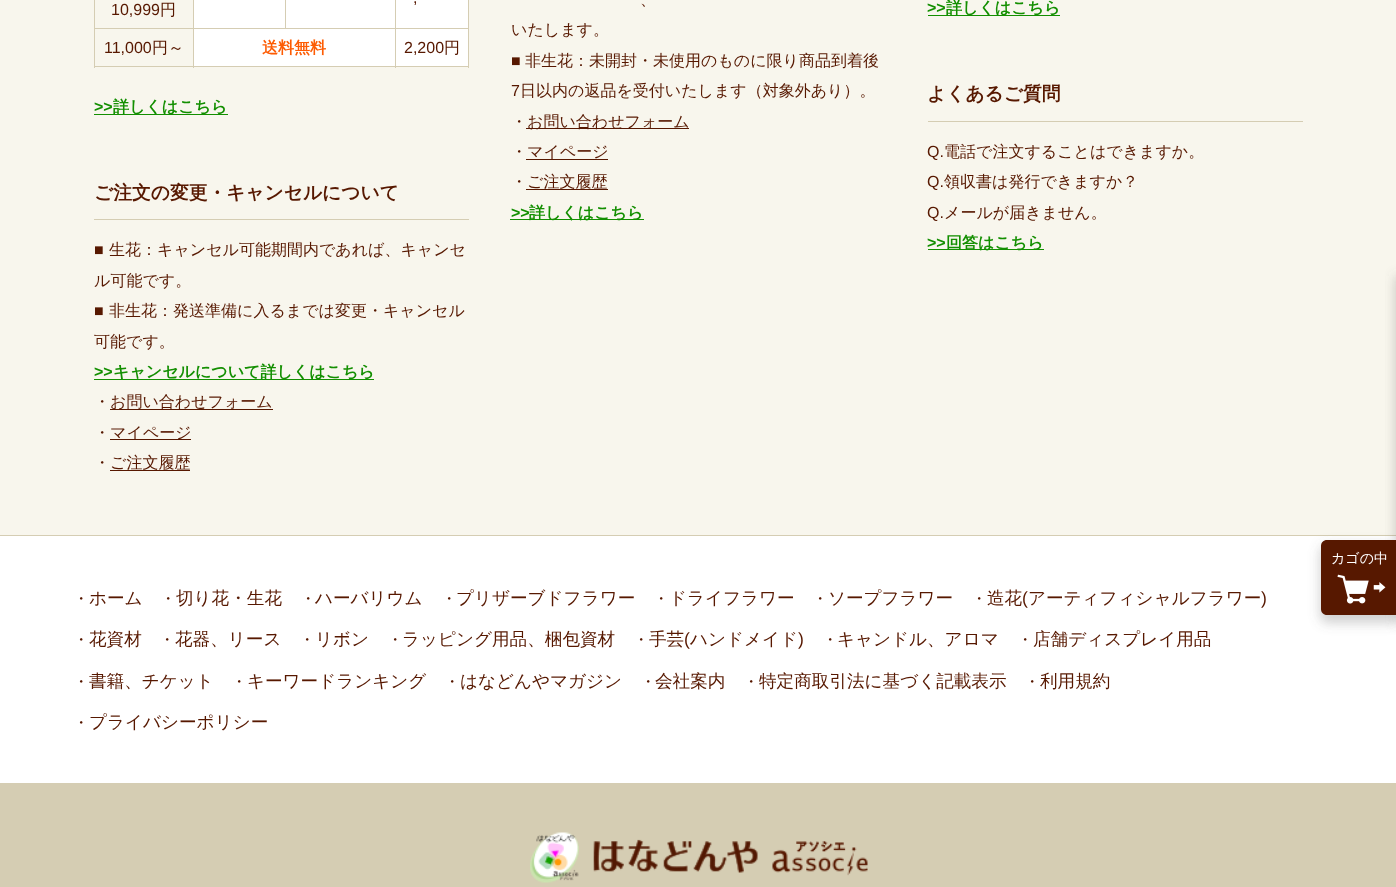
<svg xmlns="http://www.w3.org/2000/svg" width="1396" height="887" viewBox="0 0 1396 887">
  <defs>
    <filter id="blur1" x="-50%" y="-200%" width="200%" height="500%"><feGaussianBlur stdDeviation="6"/></filter>
  </defs>
  <rect width="100%" height="100%" fill="#ffffff"/>
  <rect x="0" y="0" width="1396" height="535" fill="#f8f6ed"/>
  <rect x="0" y="535" width="1396" height="1" fill="#d5cdb3"/>
  <rect x="94" y="0" width="1" height="68" fill="#d5cdb3"/>
  <rect x="468" y="0" width="1" height="68" fill="#d5cdb3"/>
  <rect x="395" y="66" width="74" height="1" fill="#d5cdb3"/>
  <rect x="395" y="28" width="1" height="40" fill="#d5cdb3"/>
  <rect x="395" y="28" width="74" height="1" fill="#d5cdb3"/>
  <rect x="395" y="0" width="1" height="29" fill="#d5cdb3"/>
  <rect x="285" y="28" width="111" height="1" fill="#d5cdb3"/>
  <rect x="285" y="0" width="1" height="29" fill="#d5cdb3"/>
  <rect x="193" y="66" width="203" height="1" fill="#d5cdb3"/>
  <rect x="193" y="28" width="1" height="40" fill="#d5cdb3"/>
  <rect x="193" y="28" width="93" height="1" fill="#d5cdb3"/>
  <rect x="193" y="0" width="1" height="29" fill="#d5cdb3"/>
  <rect x="94" y="28" width="100" height="1" fill="#d5cdb3"/>
  <text x="111" y="15" font-family="Liberation Sans" font-size="16" fill="#571800">10,999</text>
  <text x="160" y="15" font-family="WenQuanYi Zen Hei" font-size="16" font-weight="500" fill="#571800">円</text>
  <rect x="194" y="0" width="91" height="28" fill="#ffffff"/>
  <rect x="286" y="0" width="109" height="28" fill="#ffffff"/>
  <rect x="396" y="0" width="72" height="28" fill="#ffffff"/>
  <text x="413" y="3" font-family="Liberation Sans" font-size="16" fill="#571800">,</text>
  <rect x="94" y="66" width="100" height="1" fill="#d5cdb3"/>
  <text x="104" y="53" font-family="Liberation Sans" font-size="16" fill="#571800">11,000</text>
  <text x="152" y="53" font-family="WenQuanYi Zen Hei" font-size="16" font-weight="500" fill="#571800">円～</text>
  <rect x="194" y="29" width="201" height="37" fill="#ffffff"/>
  <text x="262" y="53" font-family="WenQuanYi Zen Hei" font-size="16" font-weight="bold" fill="#fd5c04">送料無料</text>
  <rect x="396" y="29" width="72" height="37" fill="#ffffff"/>
  <text x="404" y="53" font-family="Liberation Sans" font-size="16" fill="#571800">2,200</text>
  <text x="444" y="53" font-family="WenQuanYi Zen Hei" font-size="16" font-weight="500" fill="#571800">円</text>
  <text x="94" y="112" font-family="Liberation Sans" font-size="16" font-weight="bold" fill="#138f01">&gt;&gt;</text>
  <rect x="94" y="114" width="134" height="1" fill="#138f01"/>
  <text x="113" y="112" font-family="WenQuanYi Zen Hei" font-size="16" font-weight="bold" fill="#138f01">詳しくはこちら</text>
  <rect x="94" y="219" width="375" height="1" fill="#d5cdb3"/>
  <text x="94" y="199" font-family="WenQuanYi Zen Hei" font-size="18.75" font-weight="bold" fill="#571800">ご注文の変更・キャンセルについて</text>
  <text x="94" y="255" font-family="Liberation Sans" font-size="16" fill="#571800">■</text>
  <text x="109" y="255" font-family="WenQuanYi Zen Hei" font-size="16" font-weight="500" fill="#571800">生花：キャンセル可能期間内であれば、キャンセ</text>
  <text x="94" y="286" font-family="WenQuanYi Zen Hei" font-size="16" font-weight="500" fill="#571800">ル可能です。</text>
  <text x="94" y="316" font-family="Liberation Sans" font-size="16" fill="#571800">■</text>
  <text x="109" y="316" font-family="WenQuanYi Zen Hei" font-size="16" font-weight="500" fill="#571800">非生花：発送準備に入るまでは変更・キャンセル</text>
  <text x="94" y="347" font-family="WenQuanYi Zen Hei" font-size="16" font-weight="500" fill="#571800">可能です。</text>
  <text x="94" y="377" font-family="Liberation Sans" font-size="16" font-weight="bold" fill="#138f01">&gt;&gt;</text>
  <rect x="94" y="379" width="280" height="1" fill="#138f01"/>
  <text x="113" y="377" font-family="WenQuanYi Zen Hei" font-size="16" font-weight="bold" fill="#138f01">キャンセルについて詳しくはこちら</text>
  <text x="94" y="407" font-family="WenQuanYi Zen Hei" font-size="16" font-weight="500" fill="#571800">・</text>
  <rect x="110" y="409" width="163" height="1" fill="#571800"/>
  <text x="110" y="407" font-family="WenQuanYi Zen Hei" font-size="16" font-weight="500" fill="#571800">お問い合わせフォーム</text>
  <text x="94" y="438" font-family="WenQuanYi Zen Hei" font-size="16" font-weight="500" fill="#571800">・</text>
  <rect x="110" y="439" width="81" height="1" fill="#571800"/>
  <text x="110" y="438" font-family="WenQuanYi Zen Hei" font-size="16" font-weight="500" fill="#571800">マイページ</text>
  <text x="94" y="468" font-family="WenQuanYi Zen Hei" font-size="16" font-weight="500" fill="#571800">・ご注文履歴</text>
  <rect x="110" y="470" width="80" height="1" fill="#571800"/>
  <text x="640" y="5" font-family="WenQuanYi Zen Hei" font-size="16" font-weight="500" fill="#571800">、</text>
  <text x="511" y="35" font-family="WenQuanYi Zen Hei" font-size="16" font-weight="500" fill="#571800">いたします。</text>
  <text x="511" y="66" font-family="Liberation Sans" font-size="16" fill="#571800">■</text>
  <text x="525" y="66" font-family="WenQuanYi Zen Hei" font-size="16" font-weight="500" fill="#571800">非生花：未開封・未使用のものに限り商品到着後</text>
  <text x="511" y="96" font-family="Liberation Sans" font-size="16" fill="#571800">7</text>
  <text x="520" y="96" font-family="WenQuanYi Zen Hei" font-size="16" font-weight="500" fill="#571800">日以内の返品を受付いたします（対象外あり）。</text>
  <text x="511" y="127" font-family="WenQuanYi Zen Hei" font-size="16" font-weight="500" fill="#571800">・</text>
  <rect x="526" y="128" width="163" height="1" fill="#571800"/>
  <text x="527" y="127" font-family="WenQuanYi Zen Hei" font-size="16" font-weight="500" fill="#571800">お問い合わせフォーム</text>
  <text x="511" y="157" font-family="WenQuanYi Zen Hei" font-size="16" font-weight="500" fill="#571800">・</text>
  <rect x="526" y="159" width="82" height="1" fill="#571800"/>
  <text x="527" y="157" font-family="WenQuanYi Zen Hei" font-size="16" font-weight="500" fill="#571800">マイページ</text>
  <text x="511" y="187" font-family="WenQuanYi Zen Hei" font-size="16" font-weight="500" fill="#571800">・ご注文履歴</text>
  <rect x="526" y="189" width="82" height="1" fill="#571800"/>
  <text x="511" y="218" font-family="Liberation Sans" font-size="16" font-weight="bold" fill="#138f01">&gt;&gt;</text>
  <rect x="510" y="219" width="134" height="1" fill="#138f01"/>
  <text x="529" y="218" font-family="WenQuanYi Zen Hei" font-size="16" font-weight="bold" fill="#138f01">詳しくはこちら</text>
  <text x="927" y="13" font-family="Liberation Sans" font-size="16" font-weight="bold" fill="#138f01">&gt;&gt;</text>
  <rect x="928" y="15" width="132" height="1" fill="#138f01"/>
  <text x="946" y="13" font-family="WenQuanYi Zen Hei" font-size="16" font-weight="bold" fill="#138f01">詳しくはこちら</text>
  <rect x="928" y="121" width="375" height="1" fill="#d5cdb3"/>
  <text x="927" y="100" font-family="WenQuanYi Zen Hei" font-size="18.75" font-weight="bold" fill="#571800">よくあるご質問</text>
  <text x="927" y="157" font-family="Liberation Sans" font-size="16" fill="#571800">Q.</text>
  <text x="944" y="157" font-family="WenQuanYi Zen Hei" font-size="16" font-weight="500" fill="#571800">電話で注文することはできますか。</text>
  <text x="927" y="187" font-family="Liberation Sans" font-size="16" fill="#571800">Q.</text>
  <text x="944" y="187" font-family="WenQuanYi Zen Hei" font-size="16" font-weight="500" fill="#571800">領収書は発行できますか？</text>
  <text x="927" y="218" font-family="Liberation Sans" font-size="16" fill="#571800">Q.</text>
  <text x="944" y="218" font-family="WenQuanYi Zen Hei" font-size="16" font-weight="500" fill="#571800">メールが届きません。</text>
  <text x="927" y="248" font-family="Liberation Sans" font-size="16" font-weight="bold" fill="#138f01">&gt;&gt;</text>
  <rect x="928" y="249" width="116" height="1" fill="#138f01"/>
  <text x="946" y="248" font-family="WenQuanYi Zen Hei" font-size="16" font-weight="bold" fill="#138f01">回答はこちら</text>
  <rect x="1320" y="545" width="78" height="78" rx="8" fill="#666666" fill-opacity="0.3" filter="url(#blur1)"/>
  <rect x="1395" y="276" width="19" height="347" fill="#666666" fill-opacity="0.3" filter="url(#blur1)"/>
  <path d="M1327 540H1396V615H1327C1323.5 615 1321 612.5 1321 609V546C1321 542.5 1323.5 540 1327 540Z" fill="#571800"/>
  <text x="1331" y="563" font-family="WenQuanYi Zen Hei" font-size="14" font-weight="500" fill="#ffffff">カゴの中</text>
  <image x="1337" y="574" width="32" height="30" href="img1.png"/>
  <image x="1373" y="582" width="13" height="11" href="img2.png"/>
  <text x="73" y="604" font-family="WenQuanYi Zen Hei" font-size="16" font-weight="500" letter-spacing="-5" fill="#571800">・</text>
  <text x="89" y="604" font-family="WenQuanYi Zen Hei" font-size="17.6" font-weight="500" fill="#571800">ホーム</text>
  <text x="160" y="604" font-family="WenQuanYi Zen Hei" font-size="16" font-weight="500" letter-spacing="-5" fill="#571800">・</text>
  <text x="176" y="604" font-family="WenQuanYi Zen Hei" font-size="17.6" font-weight="500" fill="#571800">切り花・生花</text>
  <text x="300" y="604" font-family="WenQuanYi Zen Hei" font-size="16" font-weight="500" letter-spacing="-5" fill="#571800">・</text>
  <text x="315" y="604" font-family="WenQuanYi Zen Hei" font-size="17.6" font-weight="500" fill="#571800">ハーバリウム</text>
  <text x="441" y="604" font-family="WenQuanYi Zen Hei" font-size="16" font-weight="500" letter-spacing="-5" fill="#571800">・</text>
  <text x="456" y="604" font-family="WenQuanYi Zen Hei" font-size="17.6" font-weight="500" fill="#571800">プリザーブドフラワー</text>
  <text x="653" y="604" font-family="WenQuanYi Zen Hei" font-size="16" font-weight="500" letter-spacing="-5" fill="#571800">・</text>
  <text x="669" y="604" font-family="WenQuanYi Zen Hei" font-size="17.6" font-weight="500" fill="#571800">ドライフラワー</text>
  <text x="812" y="604" font-family="WenQuanYi Zen Hei" font-size="16" font-weight="500" letter-spacing="-5" fill="#571800">・</text>
  <text x="828" y="604" font-family="WenQuanYi Zen Hei" font-size="17.6" font-weight="500" fill="#571800">ソープフラワー</text>
  <text x="971" y="604" font-family="WenQuanYi Zen Hei" font-size="16" font-weight="500" letter-spacing="-5" fill="#571800">・</text>
  <text x="987" y="604" font-family="WenQuanYi Zen Hei" font-size="17.6" font-weight="500" fill="#571800">造花</text>
  <text x="1022" y="604" font-family="Liberation Sans" font-size="17.6" fill="#571800">(</text>
  <text x="1028" y="604" font-family="WenQuanYi Zen Hei" font-size="17.6" font-weight="500" fill="#571800">アーティフィシャルフラワー</text>
  <text x="1261" y="604" font-family="Liberation Sans" font-size="17.6" fill="#571800">)</text>
  <text x="73" y="645" font-family="WenQuanYi Zen Hei" font-size="16" font-weight="500" letter-spacing="-5" fill="#571800">・</text>
  <text x="89" y="645" font-family="WenQuanYi Zen Hei" font-size="17.6" font-weight="500" fill="#571800">花資材</text>
  <text x="159" y="645" font-family="WenQuanYi Zen Hei" font-size="16" font-weight="500" letter-spacing="-5" fill="#571800">・</text>
  <text x="175" y="645" font-family="WenQuanYi Zen Hei" font-size="17.6" font-weight="500" fill="#571800">花器、リース</text>
  <text x="299" y="645" font-family="WenQuanYi Zen Hei" font-size="16" font-weight="500" letter-spacing="-5" fill="#571800">・</text>
  <text x="315" y="645" font-family="WenQuanYi Zen Hei" font-size="17.6" font-weight="500" fill="#571800">リボン</text>
  <text x="387" y="645" font-family="WenQuanYi Zen Hei" font-size="16" font-weight="500" letter-spacing="-5" fill="#571800">・</text>
  <text x="402" y="645" font-family="WenQuanYi Zen Hei" font-size="17.6" font-weight="500" fill="#571800">ラッピング用品、梱包資材</text>
  <text x="633" y="645" font-family="WenQuanYi Zen Hei" font-size="16" font-weight="500" letter-spacing="-5" fill="#571800">・</text>
  <text x="649" y="645" font-family="WenQuanYi Zen Hei" font-size="17.6" font-weight="500" fill="#571800">手芸</text>
  <text x="684" y="645" font-family="Liberation Sans" font-size="17.6" fill="#571800">(</text>
  <text x="690" y="645" font-family="WenQuanYi Zen Hei" font-size="17.6" font-weight="500" fill="#571800">ハンドメイド</text>
  <text x="798" y="645" font-family="Liberation Sans" font-size="17.6" fill="#571800">)</text>
  <text x="822" y="645" font-family="WenQuanYi Zen Hei" font-size="16" font-weight="500" letter-spacing="-5" fill="#571800">・</text>
  <text x="837" y="645" font-family="WenQuanYi Zen Hei" font-size="17.6" font-weight="500" fill="#571800">キャンドル、アロマ</text>
  <text x="1017" y="645" font-family="WenQuanYi Zen Hei" font-size="16" font-weight="500" letter-spacing="-5" fill="#571800">・</text>
  <text x="1033" y="645" font-family="WenQuanYi Zen Hei" font-size="17.6" font-weight="500" fill="#571800">店舗ディスプレイ用品</text>
  <text x="73" y="687" font-family="WenQuanYi Zen Hei" font-size="16" font-weight="500" letter-spacing="-5" fill="#571800">・</text>
  <text x="89" y="687" font-family="WenQuanYi Zen Hei" font-size="17.6" font-weight="500" fill="#571800">書籍、チケット</text>
  <text x="231" y="687" font-family="WenQuanYi Zen Hei" font-size="16" font-weight="500" letter-spacing="-5" fill="#571800">・</text>
  <text x="247" y="687" font-family="WenQuanYi Zen Hei" font-size="17.6" font-weight="500" fill="#571800">キーワードランキング</text>
  <text x="444" y="687" font-family="WenQuanYi Zen Hei" font-size="16" font-weight="500" letter-spacing="-5" fill="#571800">・</text>
  <text x="460" y="687" font-family="WenQuanYi Zen Hei" font-size="17.6" font-weight="500" fill="#571800">はなどんやマガジン</text>
  <text x="640" y="687" font-family="WenQuanYi Zen Hei" font-size="16" font-weight="500" letter-spacing="-5" fill="#571800">・</text>
  <text x="655" y="687" font-family="WenQuanYi Zen Hei" font-size="17.6" font-weight="500" fill="#571800">会社案内</text>
  <text x="743" y="687" font-family="WenQuanYi Zen Hei" font-size="16" font-weight="500" letter-spacing="-5" fill="#571800">・</text>
  <text x="759" y="687" font-family="WenQuanYi Zen Hei" font-size="17.6" font-weight="500" fill="#571800">特定商取引法に基づく記載表示</text>
  <text x="1024" y="687" font-family="WenQuanYi Zen Hei" font-size="16" font-weight="500" letter-spacing="-5" fill="#571800">・</text>
  <text x="1040" y="687" font-family="WenQuanYi Zen Hei" font-size="17.6" font-weight="500" fill="#571800">利用規約</text>
  <text x="73" y="728" font-family="WenQuanYi Zen Hei" font-size="16" font-weight="500" letter-spacing="-5" fill="#571800">・</text>
  <text x="89" y="728" font-family="WenQuanYi Zen Hei" font-size="17.6" font-weight="500" fill="#571800">プライバシーポリシー</text>
  <rect x="0" y="783" width="1396" height="104" fill="#d5cdb3"/>
  <image x="530" y="832" width="338" height="51" href="img3.png"/>
</svg>
